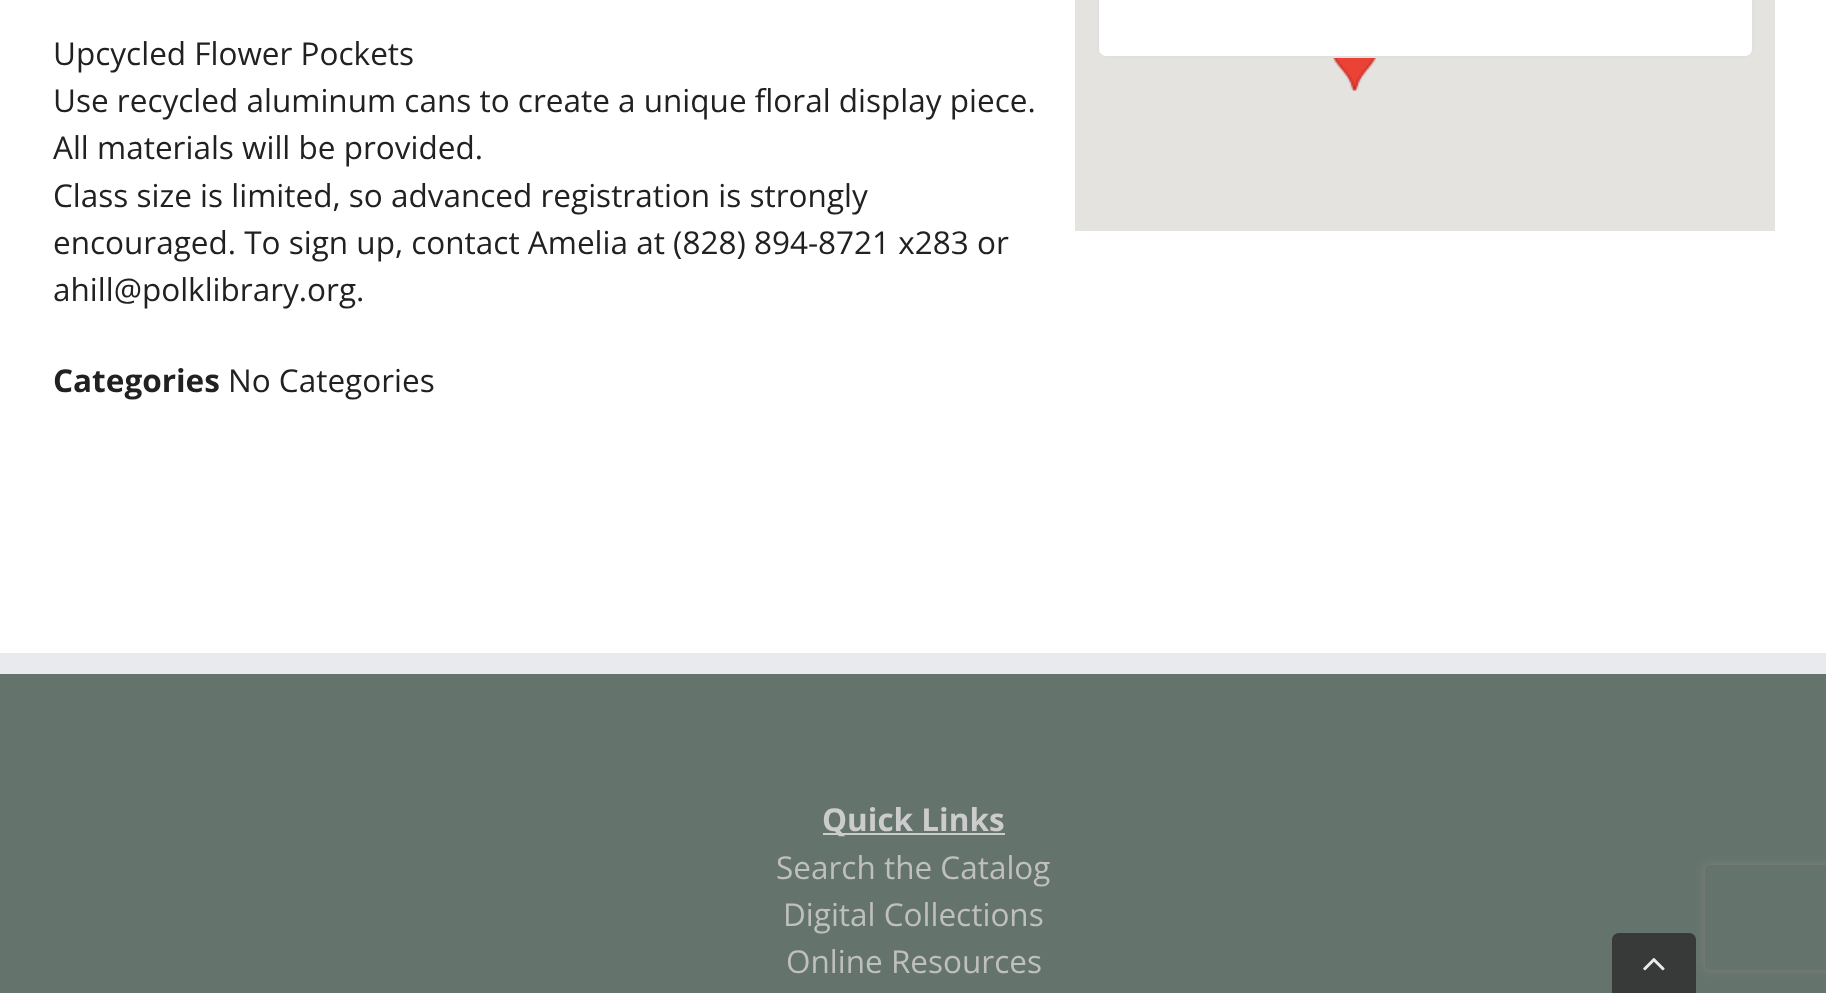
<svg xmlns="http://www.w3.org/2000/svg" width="1826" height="993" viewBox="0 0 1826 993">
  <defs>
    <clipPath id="clip1"><path d="M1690 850H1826V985H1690ZM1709 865H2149C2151 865 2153 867 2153 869V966C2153 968 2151 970 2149 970H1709C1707 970 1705 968 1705 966V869C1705 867 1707 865 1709 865Z" clip-rule="evenodd"/></clipPath>
    <filter id="blur1" x="-50%" y="-200%" width="200%" height="500%"><feGaussianBlur stdDeviation="4.5"/></filter>
  </defs>
  <rect width="100%" height="100%" fill="#ffffff"/>
  <text x="53" y="65" font-family="Open Sans" font-size="31.5" fill="#212121">Upcycled Flower Pockets</text>
  <text x="53" y="112" font-family="Open Sans" font-size="31.5" fill="#212121">Use recycled aluminum cans to create a unique floral display piece.</text>
  <text x="53" y="159" font-family="Open Sans" font-size="31.5" fill="#212121">All materials will be provided.</text>
  <text x="53" y="207" font-family="Open Sans" font-size="31.5" fill="#212121">Class size is limited, so advanced registration is strongly</text>
  <text x="53" y="254" font-family="Open Sans" font-size="31.5" fill="#212121">encouraged. To sign up, contact Amelia at (828) 894-8721 x283 or</text>
  <text x="53" y="301" font-family="Open Sans" font-size="31.5" fill="#212121">ahill@polklibrary.org.</text>
  <rect x="1075" y="0" width="700" height="231" fill="#e5e3df"/>
  <rect x="1097" y="-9" width="657" height="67" rx="9" fill="#ffffff"/>
  <rect x="1098" y="-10" width="655" height="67" rx="8" fill="none" stroke="#000000" stroke-opacity="0.12" stroke-width="2"/>
  <image x="1333" y="58" width="43" height="33" href="img1.png"/>
  <text x="53" y="392" font-family="Open Sans" font-size="31.5" font-weight="bold" fill="#212121">Categories</text>
  <text x="228" y="392" font-family="Open Sans" font-size="31.5" fill="#212121">No Categories</text>
  <rect x="0" y="674" width="1826" height="319" fill="#64746c"/>
  <rect x="0" y="653" width="1826" height="21" fill="#e9eaee"/>
  <rect x="823" y="833" width="182" height="2" fill="#cccccc"/>
  <text x="822" y="831" font-family="Open Sans" font-size="31.5" font-weight="bold" fill="#cccccc">Quick Links</text>
  <text x="776" y="879" font-family="Open Sans" font-size="31.5" fill="#bfbfbf">Search the Catalog</text>
  <text x="783" y="926" font-family="Open Sans" font-size="31.5" fill="#bfbfbf">Digital Collections</text>
  <text x="786" y="973" font-family="Open Sans" font-size="31.5" fill="#bfbfbf">Online Resources</text>
  <g clip-path="url(#clip1)">
    <rect x="1705" y="865" width="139" height="105" rx="4" fill="#808080" filter="url(#blur1)"/>
  </g>
  <path d="M1619 933H1689C1693 933 1696 936 1696 940V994H1612V940C1612 936 1615 933 1619 933Z" fill="#383a39"/>
  <image x="1643" y="958" width="22" height="13" href="img2.png"/>
</svg>
